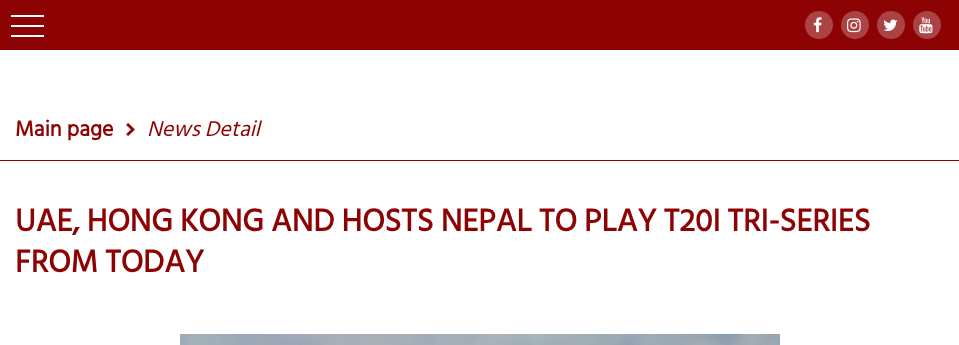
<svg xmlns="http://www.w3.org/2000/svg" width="959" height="345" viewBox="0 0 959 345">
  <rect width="100%" height="100%" fill="#ffffff"/>
  <rect x="0" y="0" width="959" height="50" fill="#8d0303"/>
  <rect x="11" y="15" width="33" height="2" fill="#ffffff"/>
  <rect x="11" y="25" width="33" height="2" fill="#ffffff"/>
  <rect x="11" y="35" width="33" height="2" fill="#ffffff"/>
  <circle cx="819" cy="25" r="14" fill="#ab4344"/>
  <image x="813" y="17" width="9" height="16" href="img1.png"/>
  <circle cx="855" cy="25" r="14" fill="#ab4344"/>
  <image x="847" y="18" width="14" height="15" href="img2.png"/>
  <circle cx="891" cy="25" r="14" fill="#ab4344"/>
  <image x="883" y="19" width="15" height="12" href="img3.png"/>
  <circle cx="927" cy="25" r="14" fill="#ab4344"/>
  <image x="919" y="17" width="14" height="17" href="img4.png"/>
  <rect x="0" y="160" width="959" height="1" fill="#8d0303"/>
  <text x="15" y="136" font-family="Hind Siliguri" font-size="22" font-weight="bold" fill="#8d0303">Main page</text>
  <image x="125" y="123" width="11" height="13" href="img5.png"/>
  <text x="147" y="136" font-family="Hind Siliguri" font-size="22" font-style="italic" fill="#8d0303">News Detail</text>
  <text x="15" y="231" font-family="Hind Siliguri" font-size="32" font-weight="bold" fill="#8d0303">UAE, HONG KONG AND HOSTS NEPAL TO PLAY T20I TRI-SERIES</text>
  <text x="15" y="272" font-family="Hind Siliguri" font-size="32" font-weight="bold" fill="#8d0303">FROM TODAY</text>
  <image x="180" y="334" width="600" height="11" href="img6.png"/>
</svg>
